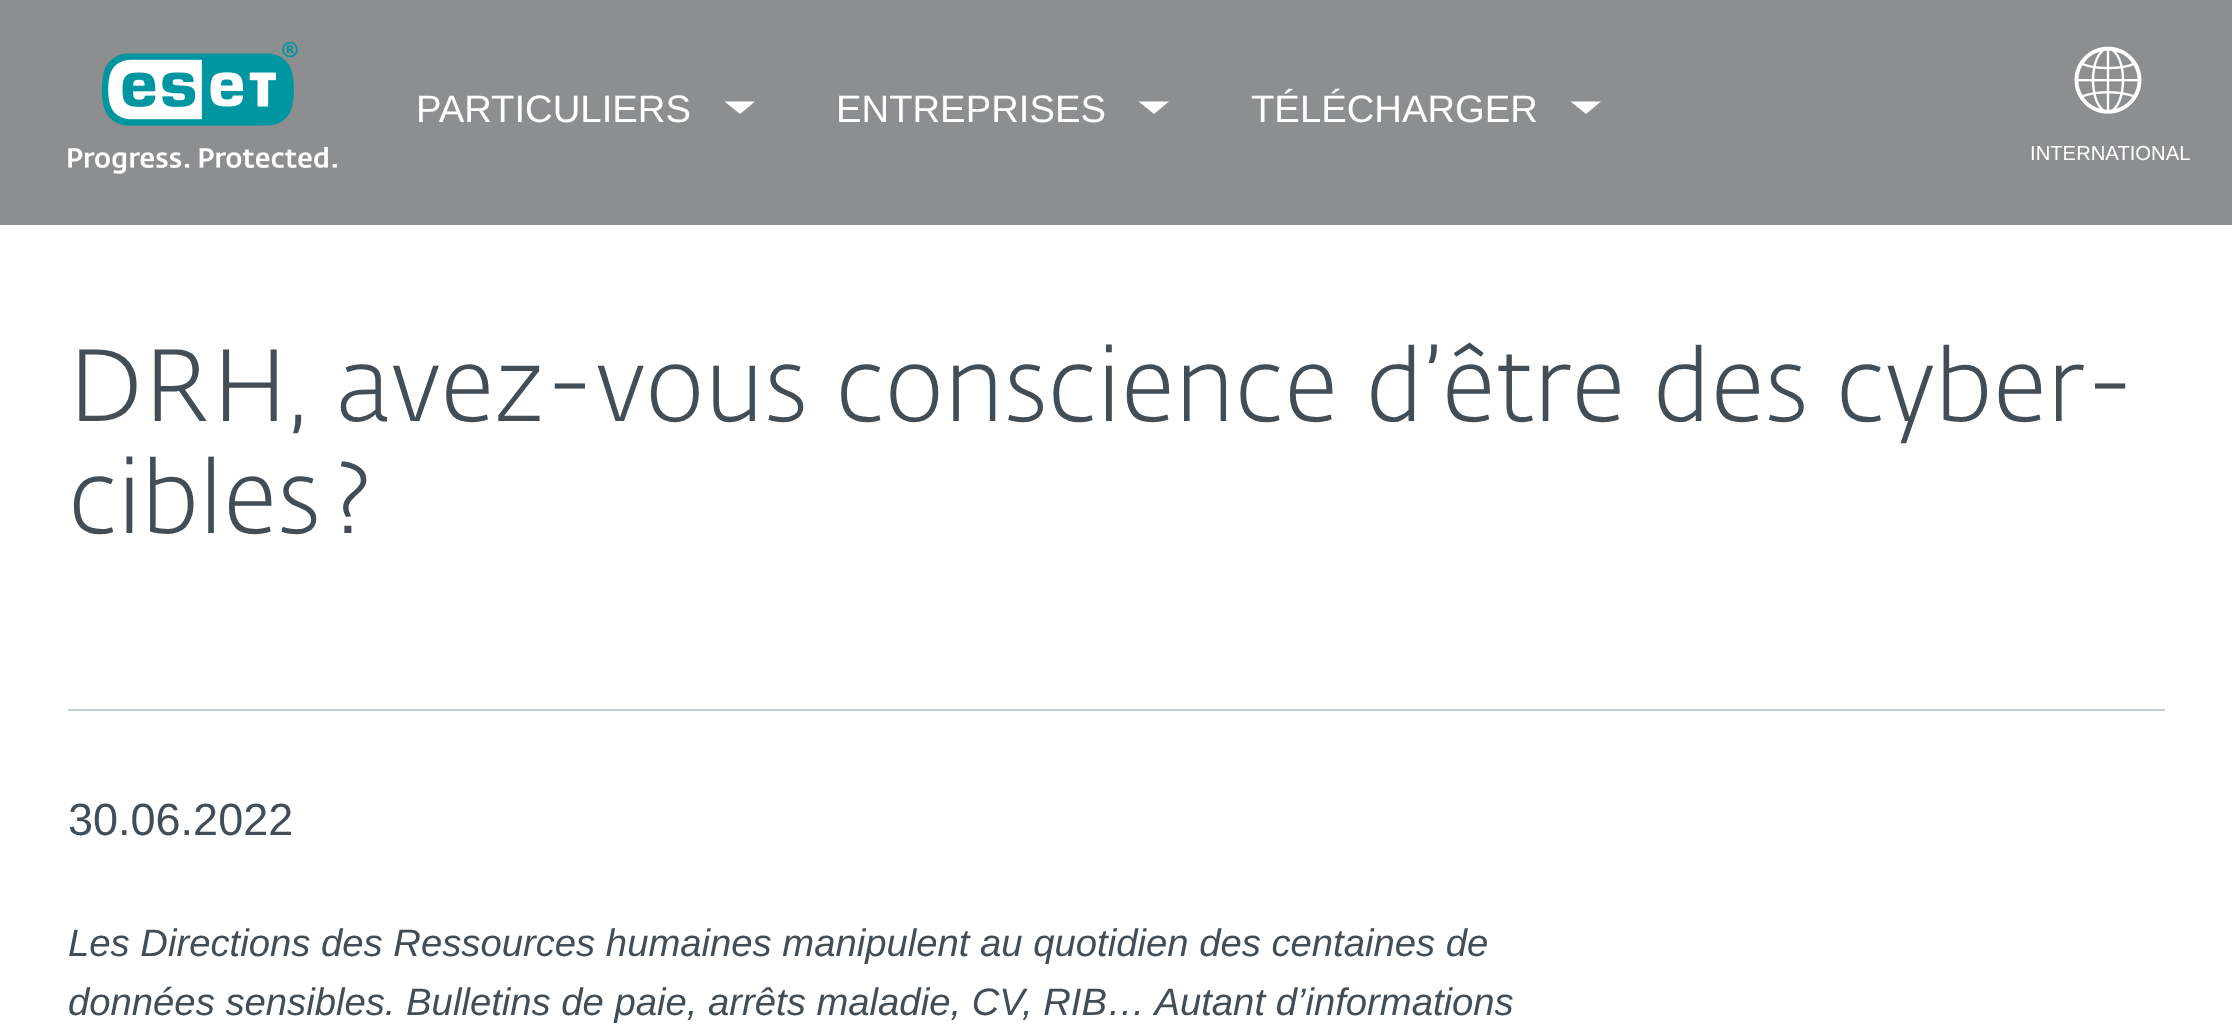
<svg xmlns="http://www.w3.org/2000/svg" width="2232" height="1035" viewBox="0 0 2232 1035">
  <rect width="100%" height="100%" fill="#ffffff"/>
  <rect x="0" y="0" width="2232" height="225" fill="#8c8e90"/>
  <image x="68" y="41" width="269" height="133" href="img1.png"/>
  <text x="416" y="122" font-family="Liberation Sans" font-size="38.25" fill="#ffffff">PARTICULIERS</text>
  <path d="M755 101.5L740 114L724.5 101.5Z" fill="#ffffff"/>
  <text x="836" y="122" font-family="Liberation Sans" font-size="38.25" fill="#ffffff">ENTREPRISES</text>
  <path d="M1169 101.5L1154 114L1138.5 101.5Z" fill="#ffffff"/>
  <text x="1251" y="122" font-family="Liberation Sans" font-size="38.25" fill="#ffffff">TÉLÉCHARGER</text>
  <path d="M1601 101.5L1586 114L1570.5 101.5Z" fill="#ffffff"/>
  <image x="2074" y="46" width="68" height="68" href="img2.png"/>
  <text x="2030" y="160" font-family="Liberation Sans" font-size="20.25" fill="#ffffff">INTERNATIONAL</text>
  <rect x="68" y="709" width="2097" height="2" fill="#c6cfd4"/>
  <text x="68" y="421" font-family="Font" font-size="101.25" font-weight="300" fill="#424d56">DRH, avez-vous conscience d’être des cyber-</text>
  <text x="68" y="533" font-family="Font" font-size="101.25" font-weight="300" fill="#424d56">cibles ?</text>
  <text x="68" y="835" font-family="Liberation Sans" font-size="45" fill="#424d56">30.06.2022</text>
  <text x="68" y="956" font-family="Liberation Sans" font-size="38.25" font-style="italic" fill="#424d56">Les Directions des Ressources humaines manipulent au quotidien des centaines de</text>
  <text x="68" y="1015" font-family="Liberation Sans" font-size="38.25" font-style="italic" fill="#424d56">données sensibles. Bulletins de paie, arrêts maladie, CV, RIB… Autant d’informations</text>
</svg>
